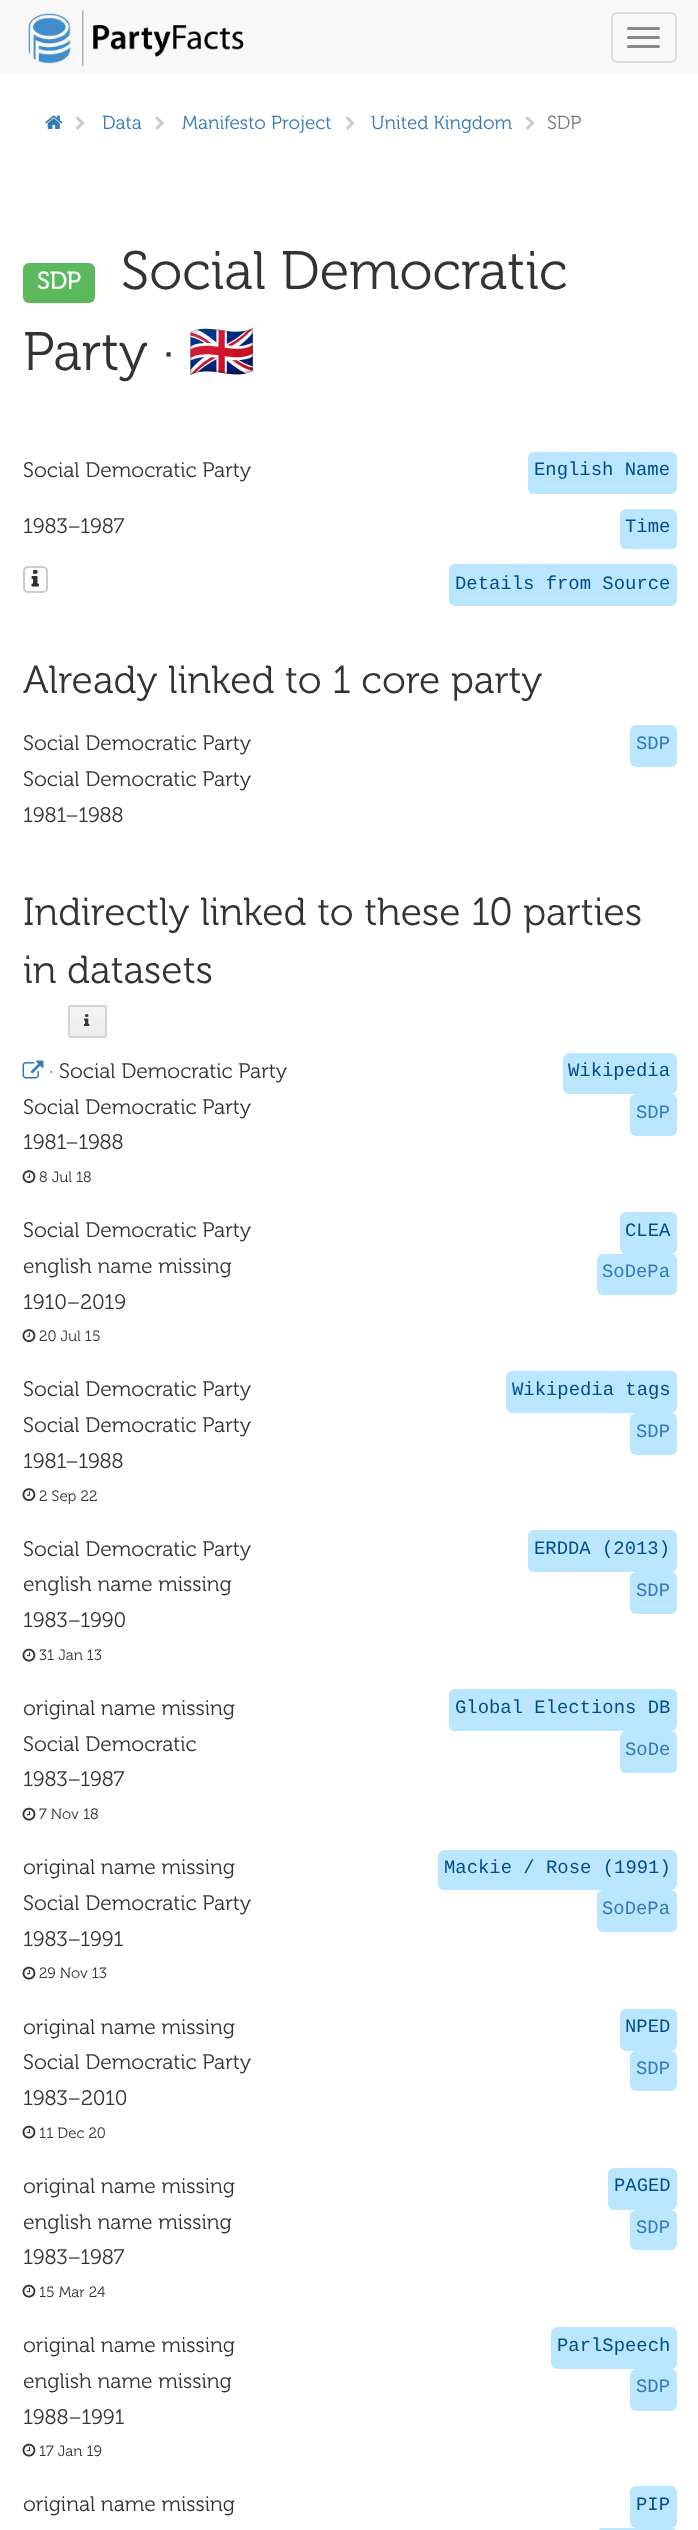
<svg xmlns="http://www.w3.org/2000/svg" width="698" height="2530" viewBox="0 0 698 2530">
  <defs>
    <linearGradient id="g1" gradientUnits="userSpaceOnUse" x1="87" y1="1007" x2="87" y2="1037"><stop offset="0" stop-color="#f4f4f4"/><stop offset="1" stop-color="#ececec"/></linearGradient>
  </defs>
  <rect width="100%" height="100%" fill="#ffffff"/>
  <rect x="0" y="0" width="698" height="75" fill="#f8f8f8"/>
  <image x="28" y="10" width="216" height="57" href="img1.png"/>
  <rect x="612" y="13" width="64" height="49" rx="5" fill="none" stroke="#dddddd" stroke-width="2"/>
  <rect x="627" y="27" width="33" height="3" rx="1.5" fill="#888888"/>
  <rect x="627" y="36" width="33" height="3" rx="1.5" fill="#888888"/>
  <rect x="627" y="45" width="33" height="3" rx="1.5" fill="#888888"/>
  <image x="45" y="115" width="18" height="14" href="img2.png"/>
  <image x="75" y="116" width="10" height="14" href="img3.png"/>
  <text x="102" y="129" font-family="'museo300'" font-size="18.9" fill="#337ab7">Data</text>
  <image x="155" y="116" width="9" height="14" href="img4.png"/>
  <text x="182" y="129" font-family="'museo300'" font-size="18.9" fill="#337ab7">Manifesto Project</text>
  <image x="345" y="116" width="10" height="14" href="img3.png"/>
  <text x="371" y="129" font-family="'museo300'" font-size="18.9" fill="#337ab7">United Kingdom</text>
  <image x="525" y="116" width="10" height="14" href="img3.png"/>
  <text x="547" y="129" font-family="'museo300'" font-size="18.9" fill="#777777">SDP</text>
  <rect x="23" y="263" width="72" height="40" rx="6" fill="#5cb85c"/>
  <text x="37" y="289" font-family="'museo300'" font-size="24" font-weight="bold" fill="#ffffff">SDP</text>
  <text x="121" y="289" font-family="'museo300'" font-size="54" fill="#333333">Social Democratic</text>
  <text x="23" y="370" font-family="'museo300'" font-size="54" fill="#333333">Party ·</text>
  <text x="188" y="370" font-family="Noto Color Emoji" font-size="54" fill="#333333">🇬🇧</text>
  <text x="23" y="477" font-family="'museo300'" font-size="21" fill="#333333">Social Democratic Party</text>
  <rect x="528" y="452" width="149" height="42" rx="6" fill="#bae6ff"/>
  <text x="534" y="475" font-family="Liberation Mono" font-size="18.9" fill="#004d8a">English Name</text>
  <text x="23" y="533" font-family="'museo300'" font-size="21" fill="#333333">1983–1987</text>
  <rect x="620" y="509" width="57" height="40" rx="6" fill="#bae6ff"/>
  <text x="625" y="532" font-family="Liberation Mono" font-size="18.9" fill="#004d8a">Time</text>
  <rect x="24" y="567" width="23" height="25" rx="4" fill="none" stroke="#cccccc" stroke-width="2"/>
  <image x="31" y="570" width="8" height="17" href="img5.png"/>
  <rect x="449" y="564" width="228" height="42" rx="6" fill="#bae6ff"/>
  <text x="455" y="589" font-family="Liberation Mono" font-size="18.9" fill="#004d8a">Details from Source</text>
  <text x="23" y="693" font-family="'museo300'" font-size="39" fill="#333333">Already linked to 1 core party</text>
  <text x="23" y="750" font-family="'museo300'" font-size="21" fill="#333333">Social Democratic Party</text>
  <text x="23" y="786" font-family="'museo300'" font-size="21" fill="#333333">Social Democratic Party</text>
  <text x="23" y="822" font-family="'museo300'" font-size="21" fill="#333333">1981–1988</text>
  <rect x="630" y="725" width="47" height="42" rx="6" fill="#bae6ff"/>
  <text x="636" y="749" font-family="Liberation Mono" font-size="18.9" fill="#337ab7">SDP</text>
  <text x="23" y="925" font-family="'museo300'" font-size="39" fill="#333333">Indirectly linked to these 10 parties</text>
  <text x="23" y="983" font-family="'museo300'" font-size="39" fill="#333333">in datasets</text>
  <rect x="69" y="1007" width="36" height="30" rx="1.5" fill="url(#g1)"/>
  <rect x="69" y="1006" width="37" height="31" rx="2" fill="none" stroke="#d4d4d4" stroke-width="2"/>
  <image x="84" y="1014" width="6" height="12" href="img6.png"/>
  <image x="22" y="1060" width="22" height="19" href="img7.png"/>
  <text x="49" y="1078" font-family="'museo300'" font-size="21" fill="#337ab7">·</text>
  <text x="59" y="1078" font-family="'museo300'" font-size="21" fill="#333333">Social Democratic Party</text>
  <text x="23" y="1114" font-family="'museo300'" font-size="21" fill="#333333">Social Democratic Party</text>
  <text x="23" y="1149" font-family="'museo300'" font-size="21" fill="#333333">1981–1988</text>
  <rect x="563" y="1053" width="114" height="41" rx="6" fill="#bae6ff"/>
  <text x="568" y="1076" font-family="Liberation Mono" font-size="18.9" fill="#004d8a">Wikipedia</text>
  <rect x="630" y="1094" width="47" height="42" rx="6" fill="#bae6ff"/>
  <text x="636" y="1118" font-family="Liberation Mono" font-size="18.9" fill="#337ab7">SDP</text>
  <image x="22" y="1170" width="14" height="14" href="img8.png"/>
  <text x="39" y="1182" font-family="'museo300'" font-size="15" fill="#333333">8 Jul 18</text>
  <text x="23" y="1237" font-family="'museo300'" font-size="21" fill="#333333">Social Democratic Party</text>
  <text x="23" y="1273" font-family="'museo300'" font-size="21" fill="#333333">english name missing</text>
  <text x="23" y="1309" font-family="'museo300'" font-size="21" fill="#333333">1910–2019</text>
  <rect x="620" y="1212" width="57" height="42" rx="6" fill="#bae6ff"/>
  <text x="625" y="1236" font-family="Liberation Mono" font-size="18.9" fill="#004d8a">CLEA</text>
  <rect x="597" y="1254" width="80" height="41" rx="6" fill="#bae6ff"/>
  <text x="602" y="1277" font-family="Liberation Mono" font-size="18.9" fill="#337ab7">SoDePa</text>
  <image x="22" y="1329" width="14" height="14" href="img8.png"/>
  <text x="39" y="1341" font-family="'museo300'" font-size="15" fill="#333333">20 Jul 15</text>
  <text x="23" y="1396" font-family="'museo300'" font-size="21" fill="#333333">Social Democratic Party</text>
  <text x="23" y="1432" font-family="'museo300'" font-size="21" fill="#333333">Social Democratic Party</text>
  <text x="23" y="1468" font-family="'museo300'" font-size="21" fill="#333333">1981–1988</text>
  <rect x="506" y="1371" width="171" height="42" rx="6" fill="#bae6ff"/>
  <text x="512" y="1395" font-family="Liberation Mono" font-size="18.9" fill="#004d8a">Wikipedia tags</text>
  <rect x="630" y="1413" width="47" height="42" rx="6" fill="#bae6ff"/>
  <text x="636" y="1437" font-family="Liberation Mono" font-size="18.9" fill="#337ab7">SDP</text>
  <image x="22" y="1488" width="14" height="14" href="img8.png"/>
  <text x="39" y="1501" font-family="'museo300'" font-size="15" fill="#333333">2 Sep 22</text>
  <text x="23" y="1556" font-family="'museo300'" font-size="21" fill="#333333">Social Democratic Party</text>
  <text x="23" y="1591" font-family="'museo300'" font-size="21" fill="#333333">english name missing</text>
  <text x="23" y="1627" font-family="'museo300'" font-size="21" fill="#333333">1983–1990</text>
  <rect x="528" y="1530" width="149" height="42" rx="6" fill="#bae6ff"/>
  <text x="534" y="1554" font-family="Liberation Mono" font-size="18.9" fill="#004d8a">ERDDA (2013)</text>
  <rect x="630" y="1572" width="47" height="42" rx="6" fill="#bae6ff"/>
  <text x="636" y="1596" font-family="Liberation Mono" font-size="18.9" fill="#337ab7">SDP</text>
  <image x="22" y="1648" width="14" height="14" href="img9.png"/>
  <text x="39" y="1660" font-family="'museo300'" font-size="15" fill="#333333">31 Jan 13</text>
  <text x="23" y="1715" font-family="'museo300'" font-size="21" fill="#333333">original name missing</text>
  <text x="23" y="1751" font-family="'museo300'" font-size="21" fill="#333333">Social Democratic</text>
  <text x="23" y="1786" font-family="'museo300'" font-size="21" fill="#333333">1983–1987</text>
  <rect x="449" y="1689" width="228" height="42" rx="6" fill="#bae6ff"/>
  <text x="455" y="1713" font-family="Liberation Mono" font-size="18.9" fill="#004d8a">Global Elections DB</text>
  <rect x="620" y="1731" width="57" height="42" rx="6" fill="#bae6ff"/>
  <text x="625" y="1755" font-family="Liberation Mono" font-size="18.9" fill="#337ab7">SoDe</text>
  <image x="22" y="1807" width="14" height="14" href="img9.png"/>
  <text x="39" y="1819" font-family="'museo300'" font-size="15" fill="#333333">7 Nov 18</text>
  <text x="23" y="1874" font-family="'museo300'" font-size="21" fill="#333333">original name missing</text>
  <text x="23" y="1910" font-family="'museo300'" font-size="21" fill="#333333">Social Democratic Party</text>
  <text x="23" y="1946" font-family="'museo300'" font-size="21" fill="#333333">1983–1991</text>
  <rect x="438" y="1850" width="239" height="40" rx="6" fill="#bae6ff"/>
  <text x="444" y="1873" font-family="Liberation Mono" font-size="18.9" fill="#004d8a">Mackie / Rose (1991)</text>
  <rect x="597" y="1890" width="80" height="42" rx="6" fill="#bae6ff"/>
  <text x="602" y="1914" font-family="Liberation Mono" font-size="18.9" fill="#337ab7">SoDePa</text>
  <image x="22" y="1966" width="14" height="14" href="img9.png"/>
  <text x="39" y="1978" font-family="'museo300'" font-size="15" fill="#333333">29 Nov 13</text>
  <text x="23" y="2034" font-family="'museo300'" font-size="21" fill="#333333">original name missing</text>
  <text x="23" y="2069" font-family="'museo300'" font-size="21" fill="#333333">Social Democratic Party</text>
  <text x="23" y="2105" font-family="'museo300'" font-size="21" fill="#333333">1983–2010</text>
  <rect x="620" y="2009" width="57" height="42" rx="6" fill="#bae6ff"/>
  <text x="625" y="2032" font-family="Liberation Mono" font-size="18.9" fill="#004d8a">NPED</text>
  <rect x="630" y="2051" width="47" height="40" rx="6" fill="#bae6ff"/>
  <text x="636" y="2074" font-family="Liberation Mono" font-size="18.9" fill="#337ab7">SDP</text>
  <image x="22" y="2125" width="14" height="14" href="img9.png"/>
  <text x="39" y="2138" font-family="'museo300'" font-size="15" fill="#333333">11 Dec 20</text>
  <text x="23" y="2193" font-family="'museo300'" font-size="21" fill="#333333">original name missing</text>
  <text x="23" y="2229" font-family="'museo300'" font-size="21" fill="#333333">english name missing</text>
  <text x="23" y="2264" font-family="'museo300'" font-size="21" fill="#333333">1983–1987</text>
  <rect x="608" y="2168" width="69" height="42" rx="6" fill="#bae6ff"/>
  <text x="614" y="2191" font-family="Liberation Mono" font-size="18.9" fill="#004d8a">PAGED</text>
  <rect x="630" y="2210" width="47" height="40" rx="6" fill="#bae6ff"/>
  <text x="636" y="2233" font-family="Liberation Mono" font-size="18.9" fill="#337ab7">SDP</text>
  <image x="22" y="2284" width="14" height="14" href="img9.png"/>
  <text x="39" y="2297" font-family="'museo300'" font-size="15" fill="#333333">15 Mar 24</text>
  <text x="23" y="2352" font-family="'museo300'" font-size="21" fill="#333333">original name missing</text>
  <text x="23" y="2388" font-family="'museo300'" font-size="21" fill="#333333">english name missing</text>
  <text x="23" y="2424" font-family="'museo300'" font-size="21" fill="#333333">1988–1991</text>
  <rect x="551" y="2327" width="126" height="42" rx="6" fill="#bae6ff"/>
  <text x="557" y="2351" font-family="Liberation Mono" font-size="18.9" fill="#004d8a">ParlSpeech</text>
  <rect x="630" y="2369" width="47" height="42" rx="6" fill="#bae6ff"/>
  <text x="636" y="2392" font-family="Liberation Mono" font-size="18.9" fill="#337ab7">SDP</text>
  <image x="22" y="2443" width="14" height="14" href="img9.png"/>
  <text x="39" y="2456" font-family="'museo300'" font-size="15" fill="#333333">17 Jan 19</text>
  <text x="23" y="2511" font-family="'museo300'" font-size="21" fill="#333333">original name missing</text>
  <rect x="630" y="2486" width="47" height="42" rx="6" fill="#bae6ff"/>
  <text x="636" y="2510" font-family="Liberation Mono" font-size="18.9" fill="#004d8a">PIP</text>
  <rect x="597" y="2528" width="80" height="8" rx="6" fill="#bae6ff"/>
</svg>
